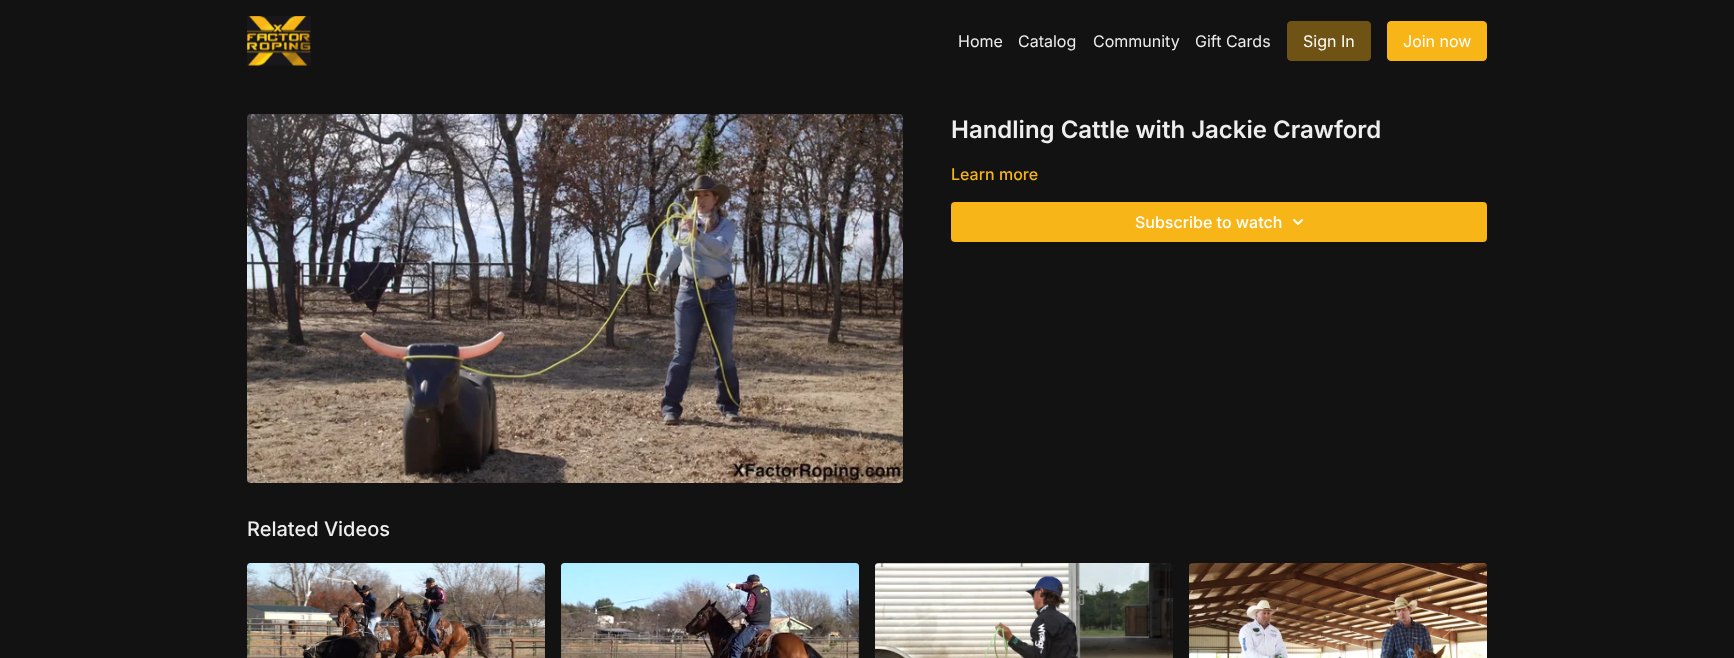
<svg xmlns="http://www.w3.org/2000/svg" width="1734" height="658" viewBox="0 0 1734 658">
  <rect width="100%" height="100%" fill="#121212"/>
  <image x="247" y="16" width="64" height="50" href="img1.png"/>
  <text x="958" y="47" font-family="Inter" font-size="16" fill="#eeeeee">Home</text>
  <text x="1018" y="47" font-family="Inter" font-size="16" fill="#eeeeee">Catalog</text>
  <text x="1093" y="47" font-family="Inter" font-size="16" fill="#eeeeee">Community</text>
  <text x="1195" y="47" font-family="Inter" font-size="16" fill="#eeeeee">Gift Cards</text>
  <rect x="1287.5" y="21.5" width="83" height="39" rx="3.5" fill="#6e5314" stroke="#6e5314"/>
  <text x="1303" y="47" font-family="Inter" font-size="16" fill="#ffffff">Sign In</text>
  <rect x="1387.5" y="21.5" width="99" height="39" rx="3.5" fill="#f8b518" stroke="#f8b518"/>
  <text x="1403" y="47" font-family="Inter" font-size="16" fill="#ffffff">Join now</text>
  <image x="247" y="114" width="656" height="369" href="img2.png"/>
  <text x="951" y="138" font-family="Inter" font-size="24" font-weight="600" fill="#eeeeee">Handling Cattle with Jackie Crawford</text>
  <text x="951" y="180" font-family="Inter" font-size="16" font-weight="500" fill="#f8b518">Learn more</text>
  <rect x="951" y="202" width="536" height="40" rx="4" fill="#f8b518"/>
  <text x="1135" y="228" font-family="Inter" font-size="16" font-weight="500" fill="#ffffff">Subscribe to watch</text>
  <image x="1293" y="219" width="10" height="6" href="img3.png"/>
  <text x="247" y="536" font-family="Inter" font-size="20" font-weight="500" fill="#eeeeee">Related Videos</text>
  <image x="247" y="563" width="298" height="95" href="img4.png"/>
  <image x="561" y="563" width="298" height="95" href="img5.png"/>
  <image x="875" y="563" width="298" height="95" href="img6.png"/>
  <image x="1189" y="563" width="298" height="95" href="img7.png"/>
</svg>
